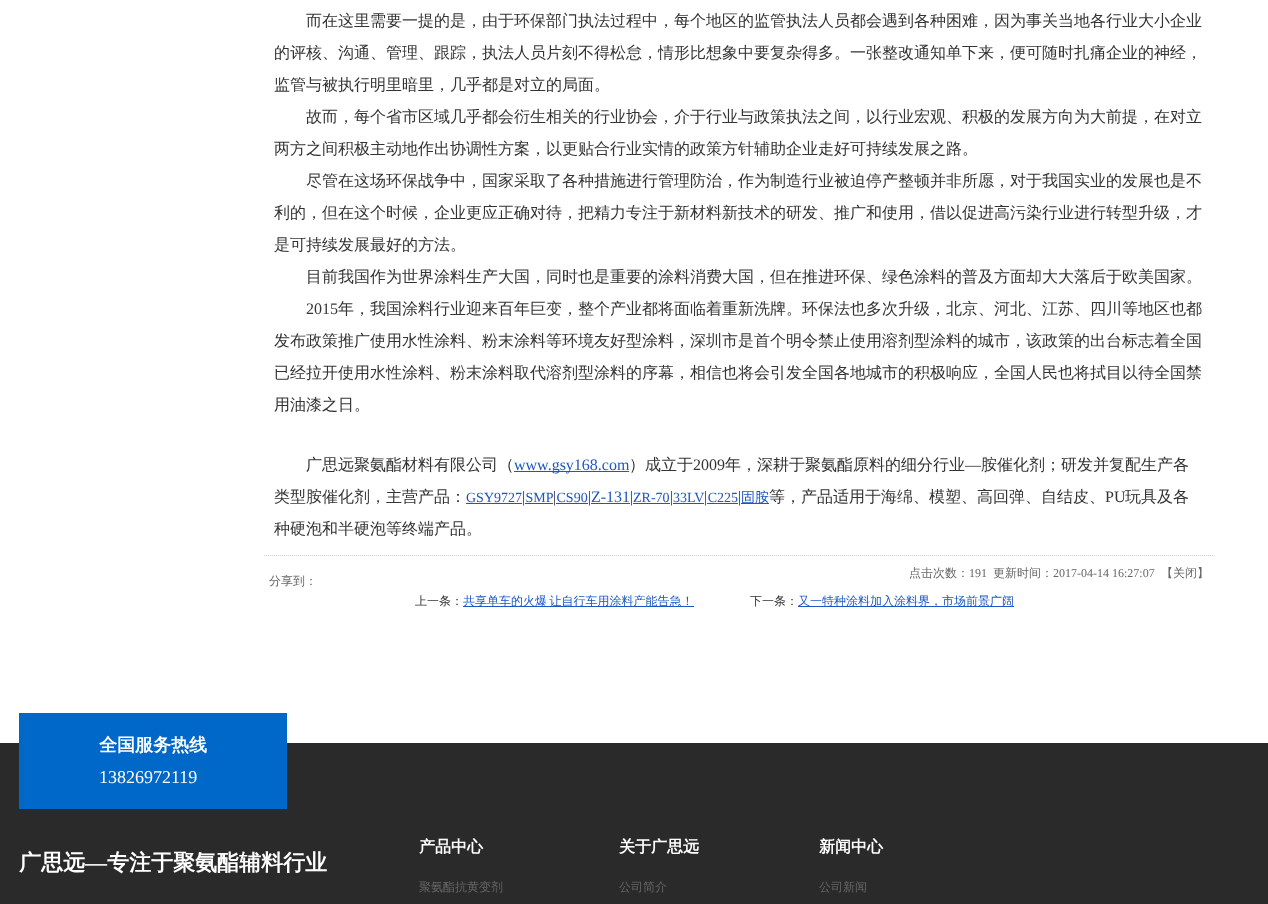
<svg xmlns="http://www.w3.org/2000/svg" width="1268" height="904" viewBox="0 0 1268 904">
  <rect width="100%" height="100%" fill="#ffffff"/>
  <text x="306" y="26" font-family="WenQuanYi Zen Hei" font-size="16" font-weight="500" fill="#333333">而在这里需要一提的是，由于环保部门执法过程中，每个地区的监管执法人员都会遇到各种困难，因为事关当地各行业大小企业</text>
  <text x="274" y="58" font-family="WenQuanYi Zen Hei" font-size="16" font-weight="500" fill="#333333">的评核、沟通、管理、跟踪，执法人员片刻不得松怠，情形比想象中要复杂得多。一张整改通知单下来，便可随时扎痛企业的神经，</text>
  <text x="274" y="90" font-family="WenQuanYi Zen Hei" font-size="16" font-weight="500" fill="#333333">监管与被执行明里暗里，几乎都是对立的局面。</text>
  <text x="306" y="122" font-family="WenQuanYi Zen Hei" font-size="16" font-weight="500" fill="#333333">故而，每个省市区域几乎都会衍生相关的行业协会，介于行业与政策执法之间，以行业宏观、积极的发展方向为大前提，在对立</text>
  <text x="274" y="154" font-family="WenQuanYi Zen Hei" font-size="16" font-weight="500" fill="#333333">两方之间积极主动地作出协调性方案，以更贴合行业实情的政策方针辅助企业走好可持续发展之路。</text>
  <text x="306" y="186" font-family="WenQuanYi Zen Hei" font-size="16" font-weight="500" fill="#333333">尽管在这场环保战争中，国家采取了各种措施进行管理防治，作为制造行业被迫停产整顿并非所愿，对于我国实业的发展也是不</text>
  <text x="274" y="218" font-family="WenQuanYi Zen Hei" font-size="16" font-weight="500" fill="#333333">利的，但在这个时候，企业更应正确对待，把精力专注于新材料新技术的研发、推广和使用，借以促进高污染行业进行转型升级，才</text>
  <text x="274" y="250" font-family="WenQuanYi Zen Hei" font-size="16" font-weight="500" fill="#333333">是可持续发展最好的方法。</text>
  <text x="306" y="282" font-family="WenQuanYi Zen Hei" font-size="16" font-weight="500" fill="#333333">目前我国作为世界涂料生产大国，同时也是重要的涂料消费大国，但在推进环保、绿色涂料的普及方面却大大落后于欧美国家。</text>
  <text x="306" y="314" font-family="Liberation Serif" font-size="16" fill="#333333">2015</text>
  <text x="338" y="314" font-family="WenQuanYi Zen Hei" font-size="16" font-weight="500" fill="#333333">年，我国涂料行业迎来百年巨变，整个产业都将面临着重新洗牌。环保法也多次升级，北京、河北、江苏、四川等地区也都</text>
  <text x="274" y="346" font-family="WenQuanYi Zen Hei" font-size="16" font-weight="500" fill="#333333">发布政策推广使用水性涂料、粉末涂料等环境友好型涂料，深圳市是首个明令禁止使用溶剂型涂料的城市，该政策的出台标志着全国</text>
  <text x="274" y="378" font-family="WenQuanYi Zen Hei" font-size="16" font-weight="500" fill="#333333">已经拉开使用水性涂料、粉末涂料取代溶剂型涂料的序幕，相信也将会引发全国各地城市的积极响应，全国人民也将拭目以待全国禁</text>
  <text x="274" y="410" font-family="WenQuanYi Zen Hei" font-size="16" font-weight="500" fill="#333333">用油漆之日。</text>
  <text x="306" y="470" font-family="WenQuanYi Zen Hei" font-size="16" font-weight="500" fill="#333333">广思远聚氨酯材料有限公司（</text>
  <rect x="514" y="471" width="115" height="1" fill="#1c57c4"/>
  <text x="514" y="470" font-family="Liberation Serif" font-size="16" fill="#1c57c4">www.gsy168.com</text>
  <text x="629" y="470" font-family="WenQuanYi Zen Hei" font-size="16" font-weight="500" fill="#333333">）成立于</text>
  <text x="693" y="470" font-family="Liberation Serif" font-size="16" fill="#333333">2009</text>
  <text x="725" y="470" font-family="WenQuanYi Zen Hei" font-size="16" font-weight="500" fill="#333333">年，深耕于聚氨酯原料的细分行业</text>
  <text x="965" y="470" font-family="Liberation Serif" font-size="16" fill="#333333">—</text>
  <text x="981" y="470" font-family="WenQuanYi Zen Hei" font-size="16" font-weight="500" fill="#333333">胺催化剂；研发并复配生产各</text>
  <text x="274" y="502" font-family="WenQuanYi Zen Hei" font-size="16" font-weight="500" fill="#333333">类型胺催化剂，主营产品：</text>
  <text x="466" y="502" font-family="Liberation Serif" font-size="14" fill="#1c57c4">GSY9727 SMP CS90</text>
  <text x="522" y="502" font-family="Liberation Serif" font-size="16" fill="#333333">|</text>
  <text x="553" y="502" font-family="Liberation Serif" font-size="16" fill="#333333">|</text>
  <text x="588" y="502" font-family="Liberation Serif" font-size="16" fill="#333333">|</text>
  <rect x="591" y="503" width="39" height="1" fill="#1c57c4"/>
  <text x="591" y="502" font-family="Liberation Serif" font-size="16" fill="#1c57c4">Z-131</text>
  <text x="630" y="502" font-family="Liberation Serif" font-size="16" fill="#333333">|</text>
  <text x="633" y="502" font-family="Liberation Serif" font-size="14" fill="#1c57c4">ZR-70 33LV C225</text>
  <text x="670" y="502" font-family="Liberation Serif" font-size="16" fill="#333333">|</text>
  <text x="704" y="502" font-family="Liberation Serif" font-size="16" fill="#333333">|</text>
  <text x="738" y="502" font-family="Liberation Serif" font-size="16" fill="#333333">|</text>
  <rect x="741" y="503" width="28" height="1" fill="#1c57c4"/>
  <text x="741" y="502" font-family="WenQuanYi Zen Hei" font-size="14" font-weight="500" fill="#1c57c4">固胺</text>
  <text x="769" y="502" font-family="WenQuanYi Zen Hei" font-size="16" font-weight="500" fill="#333333">等，产品适用于海绵、模塑、高回弹、自结皮、</text>
  <text x="1105" y="502" font-family="Liberation Serif" font-size="16" fill="#333333">PU</text>
  <text x="1125" y="502" font-family="WenQuanYi Zen Hei" font-size="16" font-weight="500" fill="#333333">玩具及各</text>
  <rect x="466" y="503" width="56" height="1" fill="#1c57c4"/>
  <rect x="633" y="503" width="37" height="1" fill="#1c57c4"/>
  <rect x="525" y="503" width="28" height="1" fill="#1c57c4"/>
  <rect x="556" y="503" width="32" height="1" fill="#1c57c4"/>
  <rect x="673" y="503" width="31" height="1" fill="#1c57c4"/>
  <rect x="707" y="503" width="31" height="1" fill="#1c57c4"/>
  <text x="274" y="534" font-family="WenQuanYi Zen Hei" font-size="16" font-weight="500" fill="#333333">种硬泡和半硬泡等终端产品。</text>
  <path d="M264 555.5H1214" fill="none" stroke="#cccccc" stroke-dasharray="1 1"/>
  <text x="269" y="585" font-family="WenQuanYi Zen Hei" font-size="12" font-weight="500" fill="#666666">分享到：</text>
  <text x="909" y="577" font-family="WenQuanYi Zen Hei" font-size="12" font-weight="500" fill="#666666">点击次数：</text>
  <text x="969" y="577" font-family="Liberation Serif" font-size="12" fill="#666666">191</text>
  <text x="993" y="577" font-family="WenQuanYi Zen Hei" font-size="12" font-weight="500" fill="#666666">更新时间：</text>
  <text x="1053" y="577" font-family="Liberation Serif" font-size="12" fill="#666666">2017-04-14 16:27:07</text>
  <text x="1161" y="577" font-family="WenQuanYi Zen Hei" font-size="12" font-weight="500" fill="#666666">【关闭】</text>
  <text x="415" y="605" font-family="WenQuanYi Zen Hei" font-size="12" font-weight="500" fill="#333333">上一条：</text>
  <rect x="463" y="606" width="231" height="1" fill="#1c57c4"/>
  <text x="463" y="605" word-spacing="-1" font-family="WenQuanYi Zen Hei" font-size="12" font-weight="500" fill="#1c57c4">共享单车的火爆 让自行车用涂料产能告急！</text>
  <text x="750" y="605" font-family="WenQuanYi Zen Hei" font-size="12" font-weight="500" fill="#333333">下一条：</text>
  <rect x="798" y="606" width="216" height="1" fill="#1c57c4"/>
  <text x="798" y="605" font-family="WenQuanYi Zen Hei" font-size="12" font-weight="500" fill="#1c57c4">又一特种涂料加入涂料界，市场前景广阔</text>
  <rect x="0" y="743" width="1268" height="161" fill="#2a2a2a"/>
  <rect x="19" y="713" width="268" height="96" fill="#0068c9"/>
  <text x="99" y="751" font-family="WenQuanYi Zen Hei" font-size="18" font-weight="bold" fill="#ffffff">全国服务热线</text>
  <text x="99" y="783" font-family="Liberation Serif" font-size="18" fill="#ffffff">13826972119</text>
  <text x="19" y="870" font-family="WenQuanYi Zen Hei" font-size="22" font-weight="bold" fill="#ffffff">广思远</text>
  <text x="85" y="870" font-family="Liberation Serif" font-size="22" font-weight="bold" fill="#ffffff">—</text>
  <text x="107" y="870" font-family="WenQuanYi Zen Hei" font-size="22" font-weight="bold" fill="#ffffff">专注于聚氨酯辅料行业</text>
  <text x="419" y="852" font-family="WenQuanYi Zen Hei" font-size="16" font-weight="bold" fill="#ffffff">产品中心</text>
  <text x="419" y="891" font-family="WenQuanYi Zen Hei" font-size="12" font-weight="500" fill="#666666">聚氨酯抗黄变剂</text>
  <text x="619" y="852" font-family="WenQuanYi Zen Hei" font-size="16" font-weight="bold" fill="#ffffff">关于广思远</text>
  <text x="619" y="891" font-family="WenQuanYi Zen Hei" font-size="12" font-weight="500" fill="#666666">公司简介</text>
  <text x="819" y="852" font-family="WenQuanYi Zen Hei" font-size="16" font-weight="bold" fill="#ffffff">新闻中心</text>
  <text x="819" y="891" font-family="WenQuanYi Zen Hei" font-size="12" font-weight="500" fill="#666666">公司新闻</text>
</svg>
